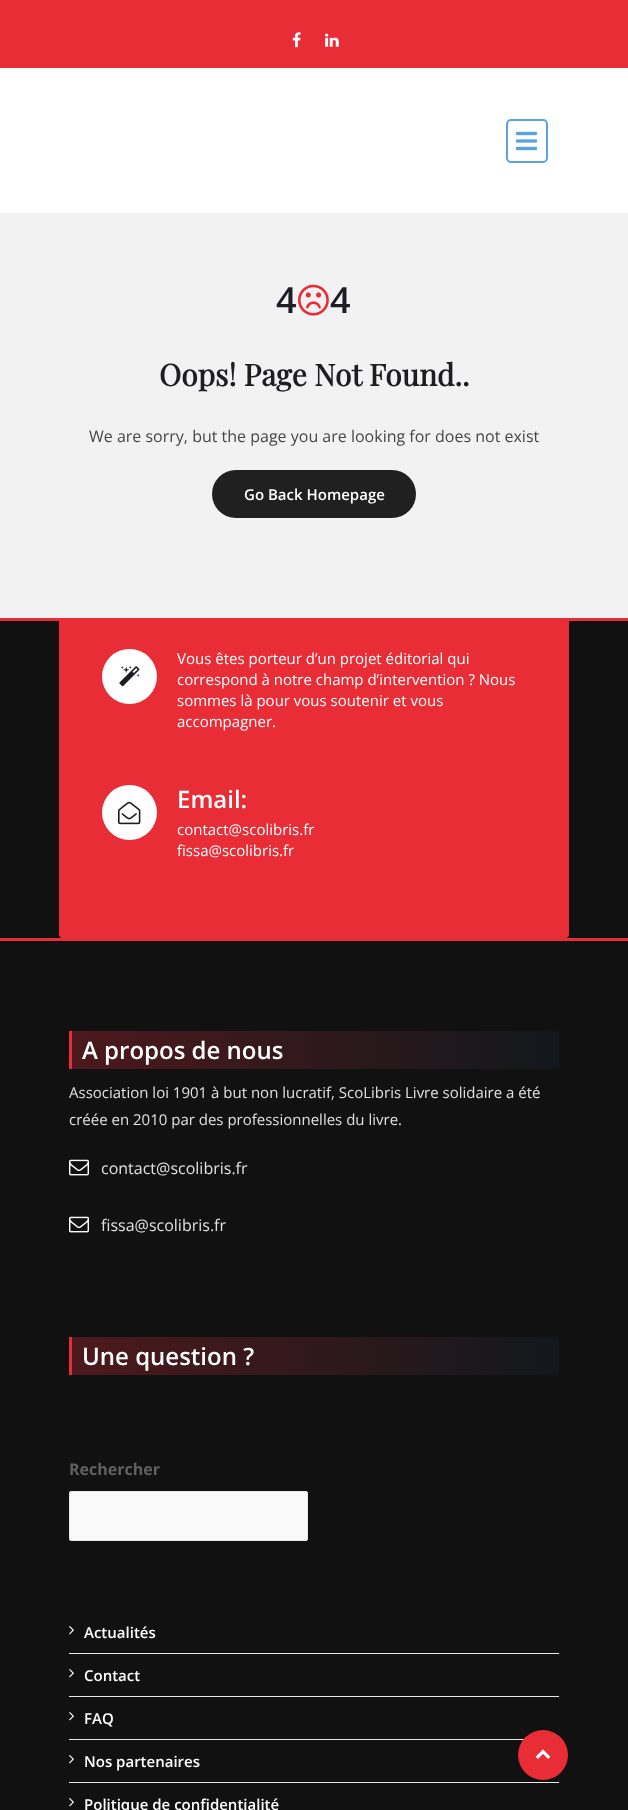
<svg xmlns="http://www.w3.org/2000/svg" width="628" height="1810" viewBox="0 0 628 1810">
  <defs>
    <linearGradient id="g1" gradientUnits="userSpaceOnUse" x1="72" y1="1050" x2="559" y2="1050"><stop offset="0" stop-color="#4d191c"/><stop offset="1" stop-color="#12181c"/></linearGradient>
    <linearGradient id="g2" gradientUnits="userSpaceOnUse" x1="72" y1="1356" x2="559" y2="1356"><stop offset="0" stop-color="#4d191c"/><stop offset="1" stop-color="#12181c"/></linearGradient>
  </defs>
  <rect width="100%" height="100%" fill="#ffffff"/>
  <rect x="0" y="0" width="628" height="68" fill="#e92d37"/>
  <image x="292" y="32" width="9" height="16" href="img1.png"/>
  <image x="325" y="33" width="14" height="14" href="img2.png"/>
  <rect x="507" y="120" width="40" height="42" rx="4" fill="none" stroke="#5ca2df" stroke-width="2"/>
  <image x="516" y="131" width="21" height="20" href="img3.png"/>
  <rect x="0" y="213" width="628" height="405" fill="#f2f2f2"/>
  <text x="276" y="313" font-family="Open Sans" font-size="36" font-weight="600" letter-spacing="1" fill="#1e1d24">4</text>
  <image x="298" y="284" width="31" height="32" href="img4.png"/>
  <text x="330" y="313" font-family="Open Sans" font-size="36" font-weight="600" letter-spacing="1" fill="#1e1d24">4</text>
  <text x="159" y="386" font-family="Playfair Display" font-size="30" font-weight="bold" fill="#1e1d24">Oops! Page Not Found..</text>
  <text x="89" y="442" font-family="Open Sans" font-size="16" fill="#464646">We are sorry, but the page you are looking for does not exist</text>
  <rect x="212" y="470" width="204" height="48" rx="24" fill="#202020"/>
  <text x="244" y="500" font-family="Open Sans" font-size="15" font-weight="600" fill="#ffffff">Go Back Homepage</text>
  <rect x="0" y="618" width="628" height="3" fill="#e92d37"/>
  <rect x="0" y="621" width="628" height="1189" fill="#111111"/>
  <path d="M59 621H569V935C569 936.5 567.5 938 566 938H62C60.5 938 59 936.5 59 935Z" fill="#e92d37"/>
  <circle cx="129.5" cy="676.5" r="27.5" fill="#ffffff"/>
  <image x="119" y="666" width="21" height="21" href="img5.png"/>
  <text x="177" y="664" font-family="Open Sans" font-size="15" fill="#ffffff">Vous êtes porteur d’un projet éditorial qui</text>
  <text x="177" y="685" font-family="Open Sans" font-size="15" fill="#ffffff">correspond à notre champ d’intervention ? Nous</text>
  <text x="177" y="706" font-family="Open Sans" font-size="15" fill="#ffffff">sommes là pour vous soutenir et vous</text>
  <text x="177" y="727" font-family="Open Sans" font-size="15" fill="#ffffff">accompagner.</text>
  <circle cx="129.5" cy="812.5" r="27.5" fill="#ffffff"/>
  <image x="118" y="801" width="23" height="24" href="img6.png"/>
  <text x="177" y="808" font-family="Open Sans" font-size="24" font-weight="600" fill="#ffffff">Email:</text>
  <text x="177" y="835" font-family="Open Sans" font-size="15" fill="#ffffff">contact@scolibris.fr</text>
  <text x="177" y="856" font-family="Open Sans" font-size="15" fill="#ffffff">fissa@scolibris.fr</text>
  <rect x="0" y="938" width="628" height="3" fill="#e92d37"/>
  <rect x="72" y="1031" width="487" height="38" fill="url(#g1)"/>
  <rect x="69" y="1031" width="3" height="38" fill="#e92d37"/>
  <text x="82" y="1059" font-family="Open Sans" font-size="24" font-weight="600" fill="#ffffff">A propos de nous</text>
  <text x="69" y="1098" font-family="Open Sans" font-size="15" fill="#e0e0e0">Association loi 1901 à but non lucratif, ScoLibris Livre solidaire a été</text>
  <text x="69" y="1125" font-family="Open Sans" font-size="15" fill="#e0e0e0">créée en 2010 par des professionnelles du livre.</text>
  <image x="69" y="1159" width="20" height="17" href="img7.png"/>
  <text x="101" y="1174" font-family="Open Sans" font-size="16" fill="#e0e0e0">contact@scolibris.fr</text>
  <image x="69" y="1216" width="20" height="17" href="img7.png"/>
  <text x="101" y="1231" font-family="Open Sans" font-size="16" fill="#e0e0e0">fissa@scolibris.fr</text>
  <rect x="72" y="1337" width="487" height="38" fill="url(#g2)"/>
  <rect x="69" y="1337" width="3" height="38" fill="#e92d37"/>
  <text x="82" y="1365" font-family="Open Sans" font-size="24" font-weight="600" fill="#ffffff">Une question ?</text>
  <text x="69" y="1475" font-family="Open Sans" font-size="16" font-weight="bold" fill="#606060">Rechercher</text>
  <rect x="69.5" y="1491.5" width="238" height="49" rx="1.5" fill="#fafafa" stroke="#e7e7e7"/>
  <rect x="69" y="1653" width="490" height="1" fill="#e7e7e7"/>
  <image x="69" y="1626" width="5" height="9" href="img8.png"/>
  <text x="84" y="1638" font-family="Open Sans" font-size="15" font-weight="600" fill="#ffffff">Actualités</text>
  <rect x="69" y="1696" width="490" height="1" fill="#e7e7e7"/>
  <image x="69" y="1669" width="5" height="9" href="img8.png"/>
  <text x="84" y="1681" font-family="Open Sans" font-size="15" font-weight="600" fill="#ffffff">Contact</text>
  <rect x="69" y="1739" width="455" height="1" fill="#e7e7e7"/>
  <image x="69" y="1712" width="5" height="9" href="img8.png"/>
  <text x="84" y="1724" font-family="Open Sans" font-size="15" font-weight="600" fill="#ffffff">FAQ</text>
  <rect x="69" y="1782" width="490" height="1" fill="#e7e7e7"/>
  <image x="69" y="1755" width="5" height="9" href="img8.png"/>
  <text x="84" y="1767" font-family="Open Sans" font-size="15" font-weight="600" fill="#ffffff">Nos partenaires</text>
  <image x="69" y="1798" width="5" height="9" href="img8.png"/>
  <text x="84" y="1810" font-family="Open Sans" font-size="15" font-weight="600" fill="#ffffff">Politique de confidentialité</text>
  <circle cx="543" cy="1755" r="25" fill="#e92d37"/>
  <image x="535" y="1749" width="16" height="10" href="img9.png"/>
</svg>
